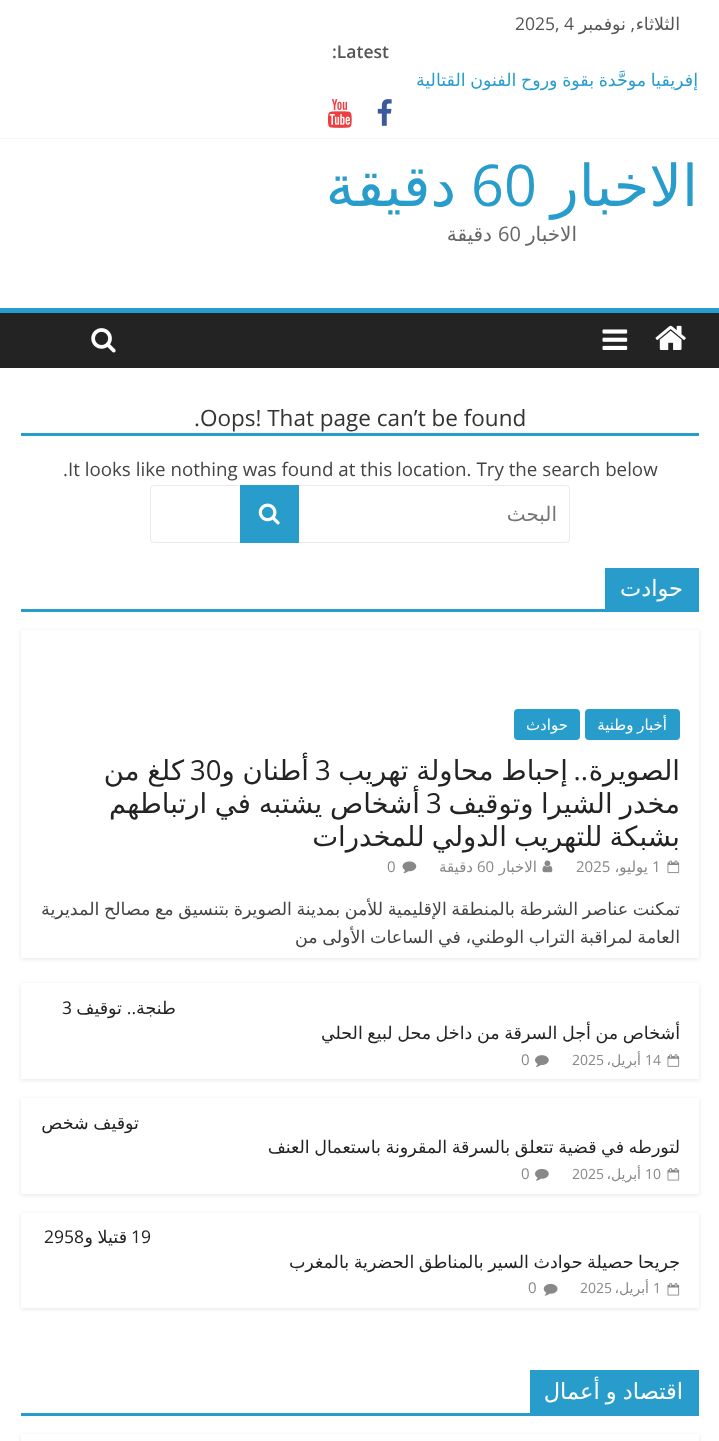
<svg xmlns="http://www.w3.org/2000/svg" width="719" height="1441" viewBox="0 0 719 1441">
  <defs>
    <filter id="blur1" x="-50%" y="-200%" width="200%" height="500%"><feGaussianBlur stdDeviation="1"/></filter>
    <filter id="blur2" x="-50%" y="-200%" width="200%" height="500%"><feGaussianBlur stdDeviation="2"/></filter>
  </defs>
  <rect width="100%" height="100%" fill="#ffffff"/>
  <rect x="0" y="0" width="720" height="138" fill="#000000" fill-opacity="0.1" filter="url(#blur1)"/>
  <rect x="0" y="0" width="719" height="138" fill="#ffffff"/>
  <text x="680" y="30" font-family="DejaVu Sans" font-size="17.5" direction="rtl" fill="#555555">الثلاثاء</text>
  <text x="635" y="30" font-family="Open Sans" font-size="17.5" direction="rtl" fill="#555555">,</text>
  <text x="626" y="30" font-family="DejaVu Sans" font-size="17.5" direction="rtl" fill="#555555">نوفمبر</text>
  <text x="515" y="30" font-family="Open Sans" font-size="17.5" fill="#555555">2025, 4</text>
  <text x="332" y="58" font-family="Open Sans" font-size="17.5" font-weight="600" fill="#555555">:Latest</text>
  <text x="698" y="86" word-spacing="-1" font-family="DejaVu Sans" font-size="17.5" direction="rtl" fill="#289dcc">إفريقيا موحَّدة بقوة وروح الفنون القتالية</text>
  <image x="377" y="99" width="15" height="27" href="img1.png"/>
  <image x="327" y="99" width="25" height="29" href="img2.png"/>
  <text x="698" y="206" font-family="DejaVu Sans" font-size="57.5" direction="rtl" fill="#289dcc">الاخبار</text>
  <text x="471" y="206" font-family="Open Sans" font-size="57.5" fill="#289dcc">60</text>
  <text x="456" y="206" font-family="DejaVu Sans" font-size="57.5" direction="rtl" fill="#289dcc">دقيقة</text>
  <text x="577" y="241" font-family="DejaVu Sans" font-size="20" direction="rtl" fill="#666666">الاخبار</text>
  <text x="498" y="241" font-family="Open Sans" font-size="20" fill="#666666">60</text>
  <text x="492" y="241" font-family="DejaVu Sans" font-size="20" direction="rtl" fill="#666666">دقيقة</text>
  <rect x="0" y="313" width="719" height="55" fill="#232323"/>
  <rect x="0" y="308" width="719" height="5" fill="#289dcc"/>
  <image x="655" y="325" width="31" height="25" href="img3.png"/>
  <image x="602" y="329" width="26" height="21" href="img4.png"/>
  <image x="91" y="328" width="25" height="25" href="img5.png"/>
  <rect x="21" y="433" width="678" height="3" fill="#289dcc"/>
  <text x="194" y="426" font-family="Open Sans" font-size="22.5" fill="#333333">.Oops! That page can’t be found</text>
  <text x="63" y="476" font-family="Open Sans" font-size="18.75" fill="#444444">.It looks like nothing was found at this location. Try the search below</text>
  <rect x="150.5" y="485.5" width="419" height="57" rx="3.5" fill="none" stroke="#eaeaea"/>
  <text x="557" y="521" font-family="DejaVu Sans" font-size="20" direction="rtl" fill="#757575">البحث</text>
  <rect x="240" y="485" width="59" height="58" fill="#289dcc"/>
  <image x="258" y="503" width="22" height="22" href="img6.png"/>
  <rect x="21" y="609" width="678" height="3" fill="#289dcc"/>
  <rect x="605" y="568" width="94" height="41" fill="#289dcc"/>
  <text x="683" y="596" font-family="DejaVu Sans" font-size="22.5" direction="rtl" fill="#ffffff">حوادت</text>
  <rect x="21" y="631" width="678" height="328" fill="#000000" fill-opacity="0.1" filter="url(#blur2)"/>
  <rect x="21" y="630" width="678" height="328" fill="#ffffff"/>
  <rect x="585" y="709" width="95" height="31" rx="4" fill="#289dcc"/>
  <text x="667" y="730" word-spacing="-1" font-family="DejaVu Sans" font-size="15" direction="rtl" fill="#ffffff">أخبار وطنية</text>
  <rect x="514" y="709" width="66" height="31" rx="4" fill="#289dcc"/>
  <text x="568" y="730" font-family="DejaVu Sans" font-size="15" direction="rtl" fill="#ffffff">حوادث</text>
  <text x="680" y="780" font-family="DejaVu Sans" font-size="27.5" direction="rtl" fill="#232323">الصويرة</text>
  <text x="588" y="780" font-family="Open Sans" font-size="27.5" direction="rtl" fill="#232323">..</text>
  <text x="568" y="780" word-spacing="-1" font-family="DejaVu Sans" font-size="27.5" direction="rtl" fill="#232323">إحباط محاولة تهريب</text>
  <text x="315" y="780" font-family="Open Sans" font-size="27.5" fill="#232323">3</text>
  <text x="309" y="780" word-spacing="-1" font-family="DejaVu Sans" font-size="27.5" direction="rtl" fill="#232323">أطنان و</text>
  <text x="190" y="780" font-family="Open Sans" font-size="27.5" fill="#232323">30</text>
  <text x="184" y="780" word-spacing="-1" font-family="DejaVu Sans" font-size="27.5" direction="rtl" fill="#232323">كلغ من</text>
  <text x="680" y="813" word-spacing="-1.5" font-family="DejaVu Sans" font-size="27.5" direction="rtl" fill="#232323">مخدر الشيرا وتوقيف</text>
  <text x="426" y="813" font-family="Open Sans" font-size="27.5" fill="#232323">3</text>
  <text x="420" y="813" word-spacing="-1" font-family="DejaVu Sans" font-size="27.5" direction="rtl" fill="#232323">أشخاص يشتبه في ارتباطهم</text>
  <text x="680" y="846" word-spacing="-1.5" font-family="DejaVu Sans" font-size="27.5" direction="rtl" fill="#232323">بشبكة للتهريب الدولي للمخدرات</text>
  <image x="667" y="860" width="13" height="14" href="img7.png"/>
  <text x="652" y="872" font-family="Open Sans" font-size="15" fill="#888888">1</text>
  <text x="648" y="872" font-family="DejaVu Sans" font-size="15" direction="rtl" fill="#888888">يوليو،</text>
  <text x="576" y="872" font-family="Open Sans" font-size="15" fill="#888888">2025</text>
  <image x="542" y="860" width="11" height="13" href="img8.png"/>
  <text x="537" y="872" font-family="DejaVu Sans" font-size="15" direction="rtl" fill="#888888">الاخبار</text>
  <text x="477" y="872" font-family="Open Sans" font-size="15" fill="#888888">60</text>
  <text x="473" y="872" font-family="DejaVu Sans" font-size="15" direction="rtl" fill="#888888">دقيقة</text>
  <image x="402" y="861" width="15" height="13" href="img9.png"/>
  <text x="387" y="872" font-family="Open Sans" font-size="15" fill="#888888">0</text>
  <text x="680" y="915" word-spacing="-1" font-family="DejaVu Sans" font-size="17.5" direction="rtl" fill="#444444">تمكنت عناصر الشرطة بالمنطقة الإقليمية للأمن بمدينة الصويرة بتنسيق مع مصالح المديرية</text>
  <text x="680" y="943" word-spacing="-1" font-family="DejaVu Sans" font-size="17.5" direction="rtl" fill="#444444">العامة لمراقبة التراب الوطني، في الساعات الأولى من</text>
  <rect x="21" y="984" width="678" height="96" fill="#000000" fill-opacity="0.1" filter="url(#blur2)"/>
  <rect x="21" y="983" width="678" height="96" fill="#ffffff"/>
  <text x="176" y="1014" font-family="DejaVu Sans" font-size="17.5" direction="rtl" fill="#232323">طنجة</text>
  <text x="136" y="1014" font-family="Open Sans" font-size="17.5" direction="rtl" fill="#232323">..</text>
  <text x="122" y="1014" font-family="DejaVu Sans" font-size="17.5" direction="rtl" fill="#232323">توقيف</text>
  <text x="62" y="1014" font-family="Open Sans" font-size="17.5" fill="#232323">3</text>
  <text x="680" y="1039" word-spacing="-1" font-family="DejaVu Sans" font-size="17.5" direction="rtl" fill="#232323">أشخاص من أجل السرقة من داخل محل لبيع الحلي</text>
  <image x="667" y="1054" width="13" height="13" href="img10.png"/>
  <text x="645" y="1065" font-family="Open Sans" font-size="14" fill="#888888">14</text>
  <text x="641" y="1065" font-family="DejaVu Sans" font-size="14" direction="rtl" fill="#888888">أبريل،</text>
  <text x="572" y="1065" font-family="Open Sans" font-size="14" fill="#888888">2025</text>
  <image x="535" y="1055" width="14" height="12" href="img11.png"/>
  <text x="521" y="1065" font-family="Open Sans" font-size="15" fill="#888888">0</text>
  <rect x="21" y="1099" width="678" height="96" fill="#000000" fill-opacity="0.1" filter="url(#blur2)"/>
  <rect x="21" y="1098" width="678" height="96" fill="#ffffff"/>
  <text x="139" y="1129" word-spacing="-1" font-family="DejaVu Sans" font-size="17.5" direction="rtl" fill="#232323">توقيف شخص</text>
  <text x="680" y="1153" word-spacing="-1" font-family="DejaVu Sans" font-size="17.5" direction="rtl" fill="#232323">لتورطه في قضية تتعلق بالسرقة المقرونة باستعمال العنف</text>
  <image x="667" y="1168" width="13" height="13" href="img12.png"/>
  <text x="645" y="1179" font-family="Open Sans" font-size="14" fill="#888888">10</text>
  <text x="641" y="1179" font-family="DejaVu Sans" font-size="14" direction="rtl" fill="#888888">أبريل،</text>
  <text x="572" y="1179" font-family="Open Sans" font-size="14" fill="#888888">2025</text>
  <image x="535" y="1168" width="14" height="13" href="img13.png"/>
  <text x="521" y="1179" font-family="Open Sans" font-size="15" fill="#888888">0</text>
  <rect x="21" y="1214" width="678" height="95" fill="#000000" fill-opacity="0.1" filter="url(#blur2)"/>
  <rect x="21" y="1213" width="678" height="95" fill="#ffffff"/>
  <text x="131" y="1243" font-family="Open Sans" font-size="17.5" fill="#232323">19</text>
  <text x="127" y="1243" word-spacing="-1" font-family="DejaVu Sans" font-size="17.5" direction="rtl" fill="#232323">قتيلا و</text>
  <text x="44" y="1243" font-family="Open Sans" font-size="17.5" fill="#232323">2958</text>
  <text x="680" y="1268" word-spacing="-1" font-family="DejaVu Sans" font-size="17.5" direction="rtl" fill="#232323">جريحا حصيلة حوادث السير بالمناطق الحضرية بالمغرب</text>
  <image x="667" y="1283" width="13" height="13" href="img12.png"/>
  <text x="653" y="1293" font-family="Open Sans" font-size="14" fill="#888888">1</text>
  <text x="649" y="1293" font-family="DejaVu Sans" font-size="14" direction="rtl" fill="#888888">أبريل،</text>
  <text x="580" y="1293" font-family="Open Sans" font-size="14" fill="#888888">2025</text>
  <image x="543" y="1283" width="15" height="13" href="img14.png"/>
  <text x="528" y="1293" font-family="Open Sans" font-size="15" fill="#888888">0</text>
  <rect x="21" y="1413" width="678" height="3" fill="#289dcc"/>
  <rect x="530" y="1370" width="169" height="43" fill="#289dcc"/>
  <text x="683" y="1399" word-spacing="-1" font-family="DejaVu Sans" font-size="22.5" direction="rtl" fill="#ffffff">اقتصاد و أعمال</text>
  <rect x="21" y="1435" width="678" height="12" fill="#000000" fill-opacity="0.1" filter="url(#blur2)"/>
  <rect x="21" y="1434" width="678" height="7" fill="#ffffff"/>
</svg>
